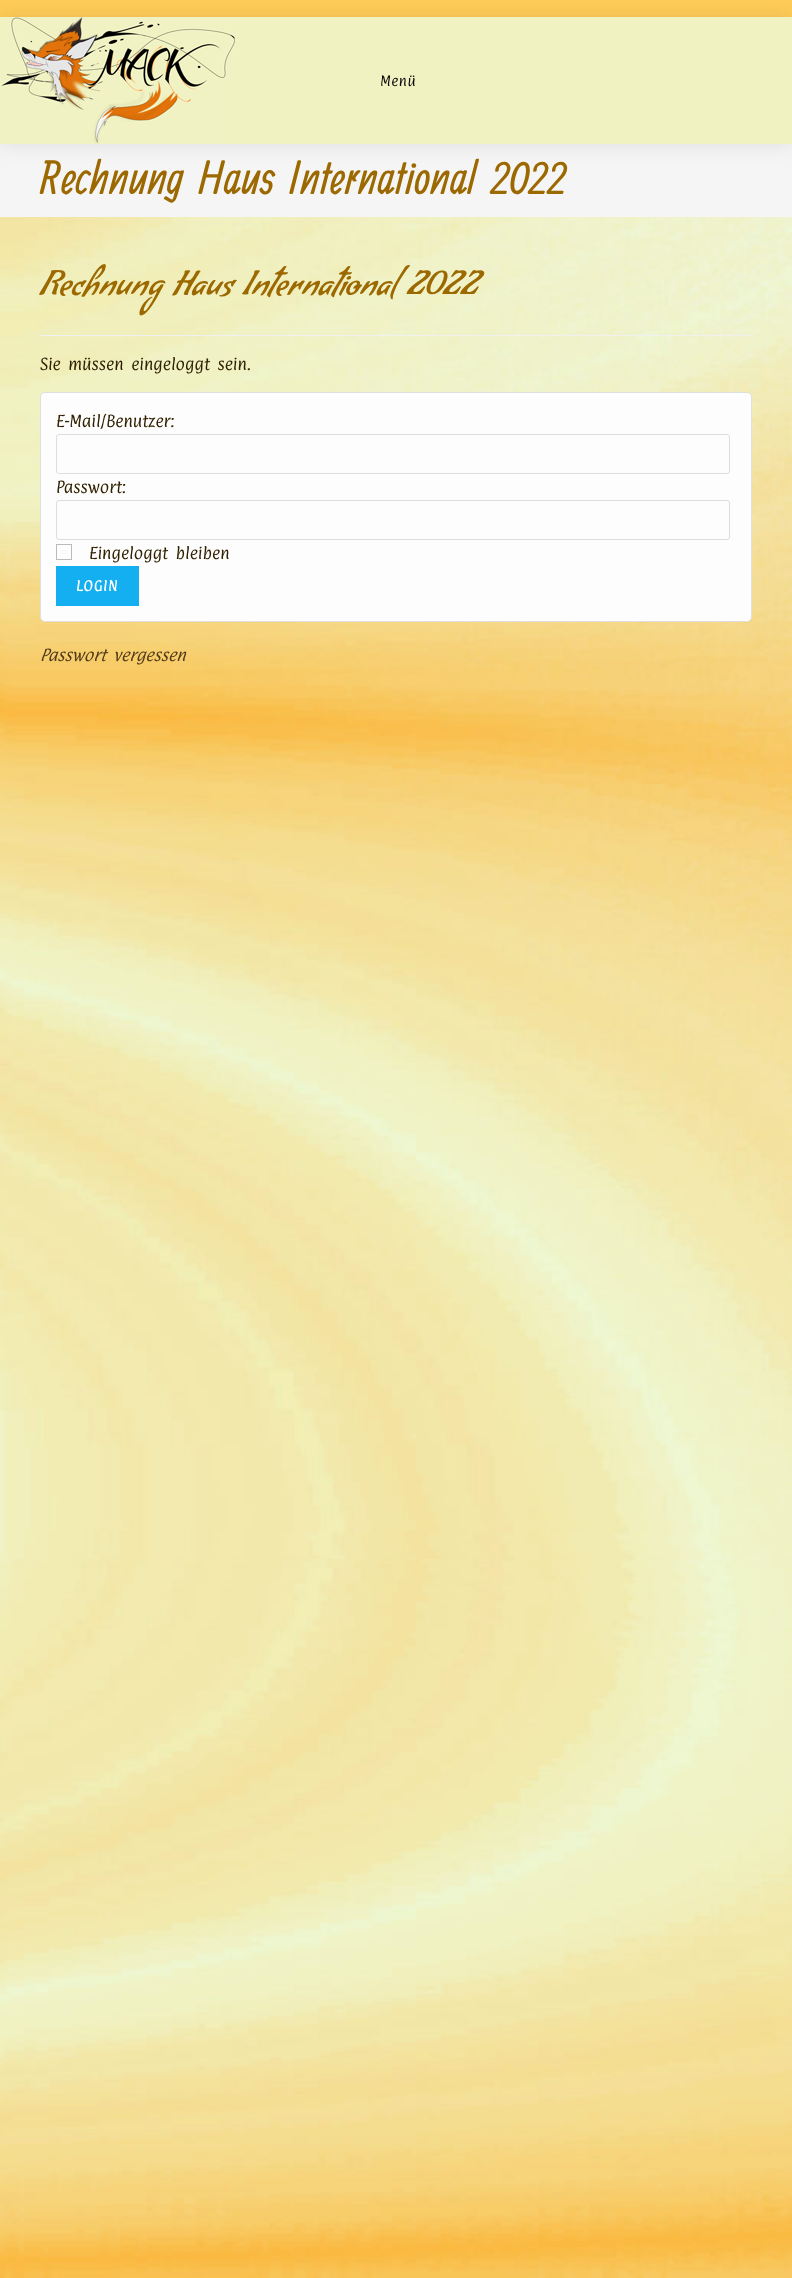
<svg xmlns="http://www.w3.org/2000/svg" width="792" height="2278" viewBox="0 0 792 2278">
  <defs>
    <filter id="blur1" x="-50%" y="-200%" width="200%" height="500%"><feGaussianBlur stdDeviation="10"/></filter>
  </defs>
  <rect width="100%" height="100%" fill="#ffffff"/>
  <image x="0" y="217" width="792" height="2061" href="img1.png"/>
  <rect x="0" y="0" width="792" height="17" fill="#ffcc57"/>
  <rect x="0" y="144" width="792" height="73" fill="#f5f5f5"/>
  <rect x="0" y="17" width="792" height="127" fill="#000000" fill-opacity="0.1" filter="url(#blur1)"/>
  <rect x="0" y="17" width="792" height="127" fill="#f1f2c2"/>
  <image x="1" y="17" width="234" height="127" href="img2.png"/>
  <text x="380" y="86" font-family="Paprika" font-size="12" letter-spacing="0.6" fill="#0a0a0a">Menü</text>
  <text x="40" y="194" word-spacing="3" font-family="Ranga" font-size="50.4" fill="#9c6800">Rechnung Haus International 2022</text>
  <rect x="40" y="335" width="712" height="1" fill="#f1f1f1"/>
  <text x="40" y="294" word-spacing="3" font-family="Condiment" font-size="34" letter-spacing="0.6" fill="#9c6800">Rechnung Haus International 2022</text>
  <text x="40" y="370" word-spacing="3" font-family="Paprika" font-size="14" fill="#302000">Sie müssen eingeloggt sein.</text>
  <rect x="40.5" y="392.5" width="711" height="229" rx="4.5" fill="#fdfdfd" stroke="#dfdfdf"/>
  <text x="56" y="427" font-family="Paprika" font-size="14" fill="#302000">E-Mail/Benutzer:</text>
  <rect x="56.5" y="434.5" width="673" height="39" rx="2.5" fill="none" stroke="#dddddd"/>
  <text x="56" y="493" font-family="Paprika" font-size="14" fill="#302000">Passwort:</text>
  <rect x="56.5" y="500.5" width="673" height="39" rx="2.5" fill="none" stroke="#dddddd"/>
  <rect x="56.5" y="544.5" width="15" height="15" fill="none" stroke="#bbbbbb"/>
  <text x="89" y="559" word-spacing="3" font-family="Paprika" font-size="14" fill="#302000">Eingeloggt bleiben</text>
  <rect x="56" y="566" width="83" height="40" fill="#13aff0"/>
  <text x="76" y="591" font-family="Paprika" font-size="12" font-weight="bold" letter-spacing="1" fill="#ffffff">LOGIN</text>
  <text x="40" y="661" word-spacing="3" font-family="Paprika" font-size="14" font-style="italic" fill="#513919">Passwort vergessen</text>
</svg>
